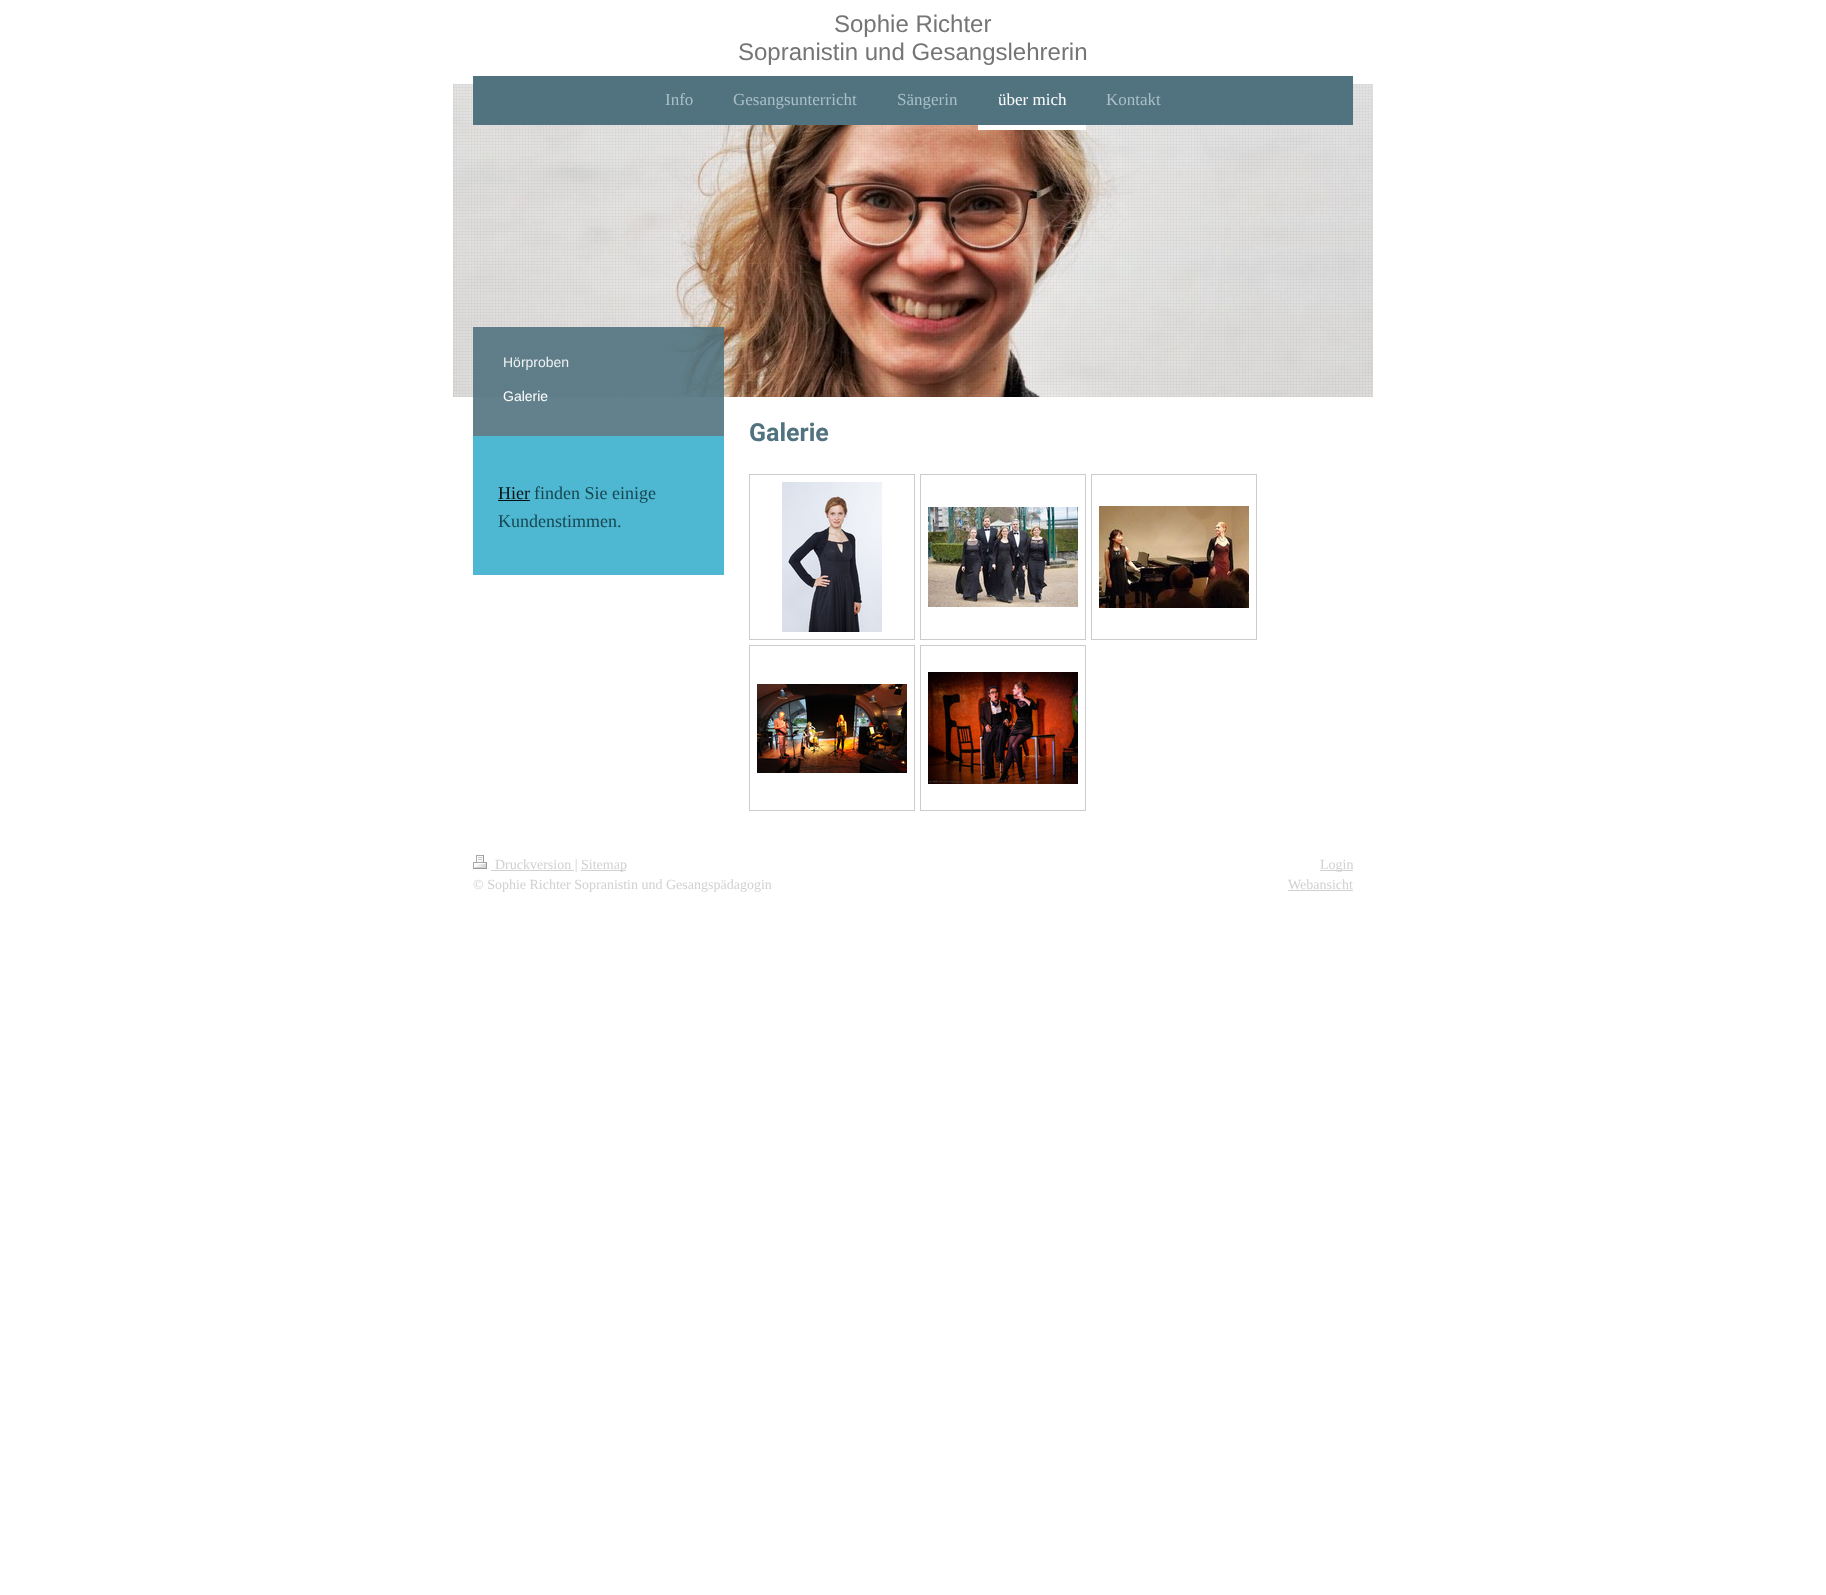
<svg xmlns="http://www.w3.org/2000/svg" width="1826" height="1595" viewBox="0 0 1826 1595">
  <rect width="100%" height="100%" fill="#ffffff"/>
  <text x="834" y="32" font-family="Liberation Sans" font-size="24" fill="#757575">Sophie Richter</text>
  <text x="738" y="60" font-family="Liberation Sans" font-size="24" fill="#757575">Sopranistin und Gesangslehrerin</text>
  <image x="453" y="84" width="920" height="313" href="img1.png"/>
  <image x="453" y="84" width="920" height="313" href="img2.png"/>
  <rect x="473" y="76" width="880" height="49" fill="#51737f"/>
  <text x="665" y="105" font-family="Liberation Serif" font-size="17" fill="#aabfc7">Info</text>
  <text x="733" y="105" font-family="Liberation Serif" font-size="17" fill="#aabfc7">Gesangsunterricht</text>
  <text x="897" y="105" font-family="Liberation Serif" font-size="17" fill="#aabfc7">Sängerin</text>
  <rect x="978" y="125" width="108" height="5" fill="#ffffff"/>
  <text x="998" y="105" font-family="Liberation Serif" font-size="17" fill="#ffffff">über mich</text>
  <text x="1106" y="105" font-family="Liberation Serif" font-size="17" fill="#aabfc7">Kontakt</text>
  <rect x="473" y="327" width="251" height="109" fill="#51737f" fill-opacity="0.9"/>
  <text x="503" y="367" font-family="Liberation Sans" font-size="14" fill="#eef1f2">Hörproben</text>
  <text x="503" y="401" font-family="Liberation Sans" font-size="14" fill="#ffffff">Galerie</text>
  <rect x="473" y="436" width="251" height="139" fill="#4eb8d2"/>
  <text x="498" y="499" font-family="Liberation Serif" font-size="18" fill="#081215">Hier</text>
  <rect x="498" y="500" width="32" height="1" fill="#081215"/>
  <text x="534" y="499" font-family="Liberation Serif" font-size="18" fill="#174651">finden Sie einige</text>
  <text x="498" y="527" font-family="Liberation Serif" font-size="18" fill="#174651">Kundenstimmen.</text>
  <text x="749" y="441" font-family="Roboto" font-size="25" font-weight="bold" fill="#51737f">Galerie</text>
  <rect x="749.5" y="474.5" width="165" height="165" fill="none" stroke="#cccccc"/>
  <image x="782" y="482" width="100" height="150" href="img3.png"/>
  <rect x="920.5" y="474.5" width="165" height="165" fill="none" stroke="#cccccc"/>
  <image x="928" y="507" width="150" height="100" href="img4.png"/>
  <rect x="1091.5" y="474.5" width="165" height="165" fill="none" stroke="#cccccc"/>
  <image x="1099" y="506" width="150" height="102" href="img5.png"/>
  <rect x="749.5" y="645.5" width="165" height="165" fill="none" stroke="#cccccc"/>
  <image x="757" y="684" width="150" height="89" href="img6.png"/>
  <rect x="920.5" y="645.5" width="165" height="165" fill="none" stroke="#cccccc"/>
  <image x="928" y="672" width="150" height="112" href="img7.png"/>
  <image x="473" y="855" width="14" height="14" href="img8.png"/>
  <rect x="491" y="870" width="83" height="1" fill="#d1d1d1"/>
  <text x="495" y="869" font-family="Liberation Serif" font-size="14" fill="#d1d1d1">Druckversion |</text>
  <rect x="581" y="870" width="45" height="1" fill="#d1d1d1"/>
  <text x="581" y="869" font-family="Liberation Serif" font-size="14" fill="#d1d1d1">Sitemap</text>
  <text x="473" y="889" font-family="Liberation Serif" font-size="14" fill="#d1d1d1">© Sophie Richter Sopranistin und Gesangspädagogin</text>
  <rect x="1320" y="870" width="33" height="1" fill="#d1d1d1"/>
  <text x="1320" y="869" font-family="Liberation Serif" font-size="14" fill="#d1d1d1">Login</text>
  <text x="1288" y="889" font-family="Liberation Serif" font-size="14" fill="#d1d1d1">Webansicht</text>
  <rect x="1288" y="890" width="65" height="1" fill="#d1d1d1"/>
</svg>
